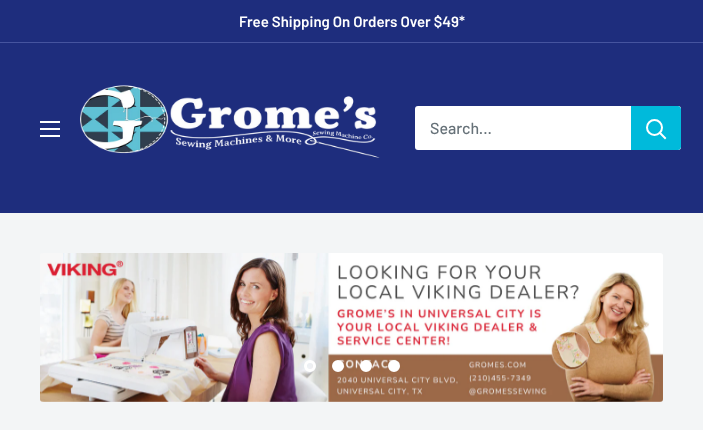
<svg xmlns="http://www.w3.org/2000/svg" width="703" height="430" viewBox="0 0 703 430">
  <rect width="100%" height="100%" fill="#f3f5f6"/>
  <rect x="0" y="0" width="703" height="42" fill="#1e2d7d"/>
  <rect x="0" y="42" width="703" height="1" fill="#46549f"/>
  <text x="239" y="27" font-family="Barlow" font-size="15" font-weight="600" fill="#ffffff">Free Shipping On Orders Over $49*</text>
  <rect x="0" y="43" width="703" height="170" fill="#1e2d7d"/>
  <image x="40" y="121" width="20" height="16" href="img1.png"/>
  <image x="80" y="85" width="300" height="73" href="img2.png"/>
  <rect x="415" y="106" width="266" height="44" rx="3" fill="#ffffff"/>
  <text x="430" y="134" font-family="Barlow" font-size="16" font-weight="500" fill="#677279">Search...</text>
  <path d="M631 106H678C679.5 106 681 107.5 681 109V147C681 148.5 679.5 150 678 150H631Z" fill="#00badb"/>
  <path d="M665 138L660 133" fill="none" stroke="#ffffff" stroke-width="2" stroke-linecap="square"/>
  <circle cx="654.5" cy="127.5" r="7.5" fill="none" stroke="#ffffff" stroke-width="2"/>
  <image x="40" y="253" width="623" height="149" href="img3.png"/>
  <circle cx="310" cy="366" r="4.5" fill="none" stroke="#ffffff" stroke-width="3"/>
  <circle cx="338" cy="366" r="4.5" fill="#ffffff" stroke="#ffffff" stroke-width="3"/>
  <circle cx="366" cy="366" r="4.5" fill="#ffffff" stroke="#ffffff" stroke-width="3"/>
  <circle cx="394" cy="366" r="4.5" fill="#ffffff" stroke="#ffffff" stroke-width="3"/>
</svg>
